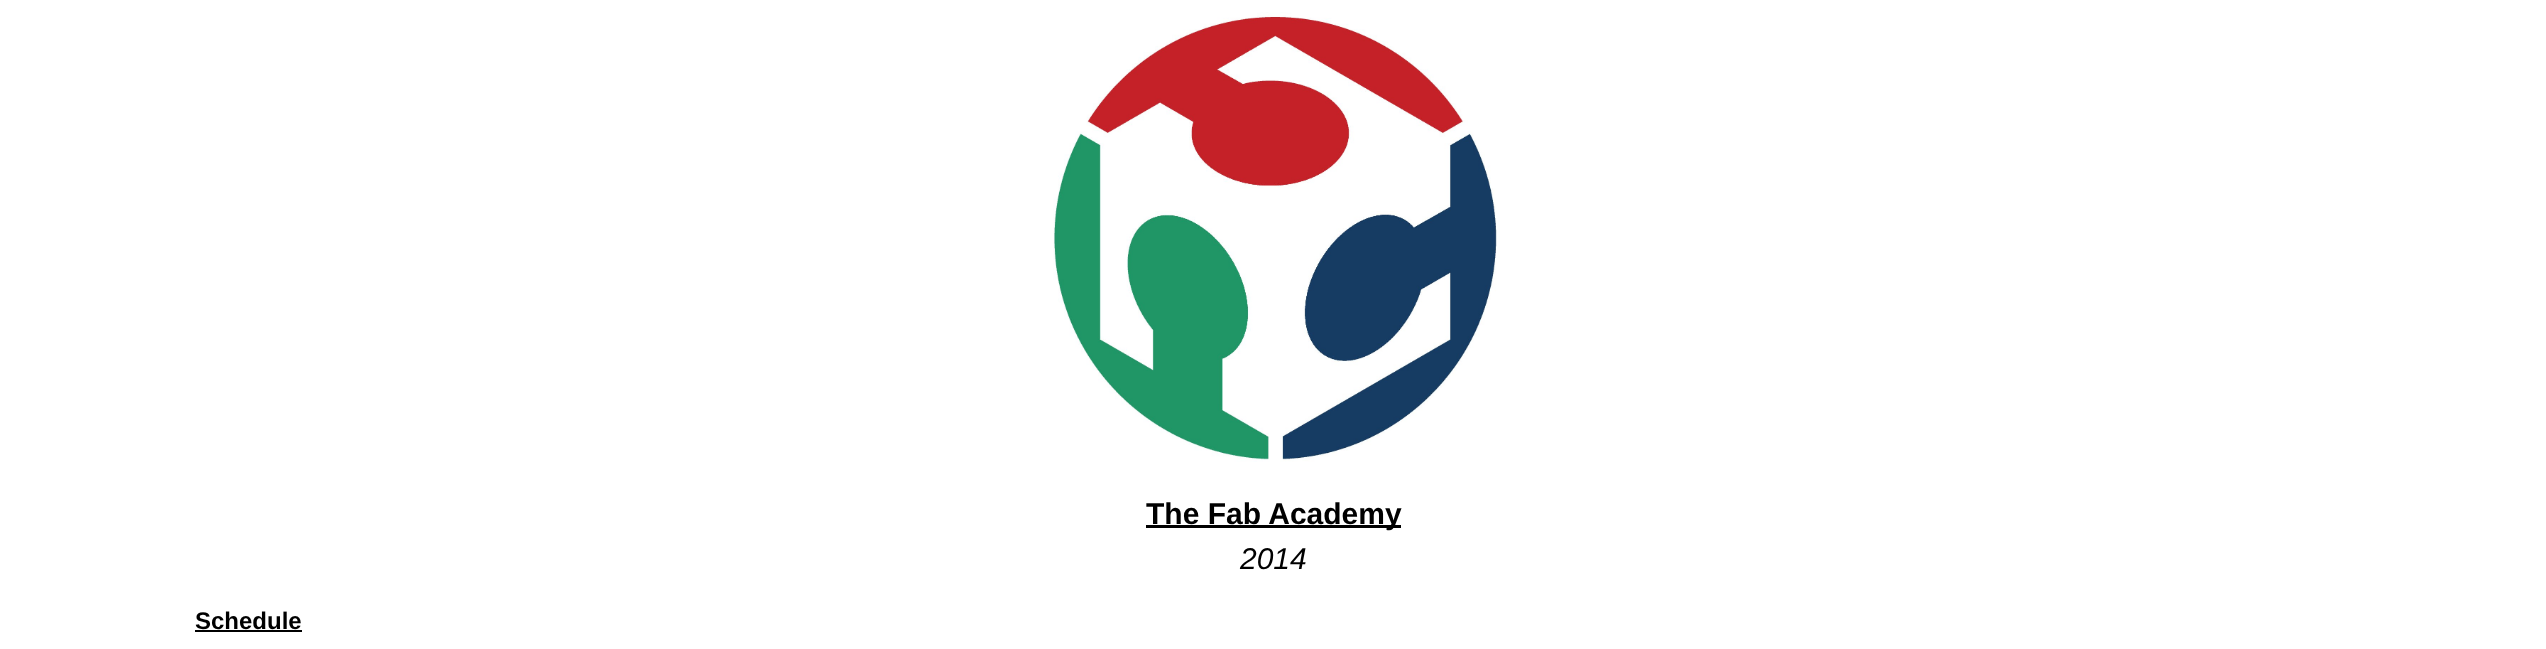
<svg xmlns="http://www.w3.org/2000/svg" width="2546" height="649" viewBox="0 0 2546 649">
  <rect width="100%" height="100%" fill="#ffffff"/>
  <image x="1053" y="12" width="444" height="450" href="img1.png"/>
  <rect x="1146" y="525" width="255" height="3" fill="#000000"/>
  <text x="1146" y="524" font-family="Liberation Sans" font-size="30" font-weight="bold" fill="#000000">The Fab Academy</text>
  <text x="1240" y="569" font-family="Liberation Sans" font-size="30" font-style="italic" fill="#000000">2014</text>
  <text x="195" y="629" font-family="Liberation Sans" font-size="24" font-weight="bold" fill="#000000">Schedule</text>
  <rect x="195" y="630" width="107" height="2" fill="#000000"/>
</svg>
